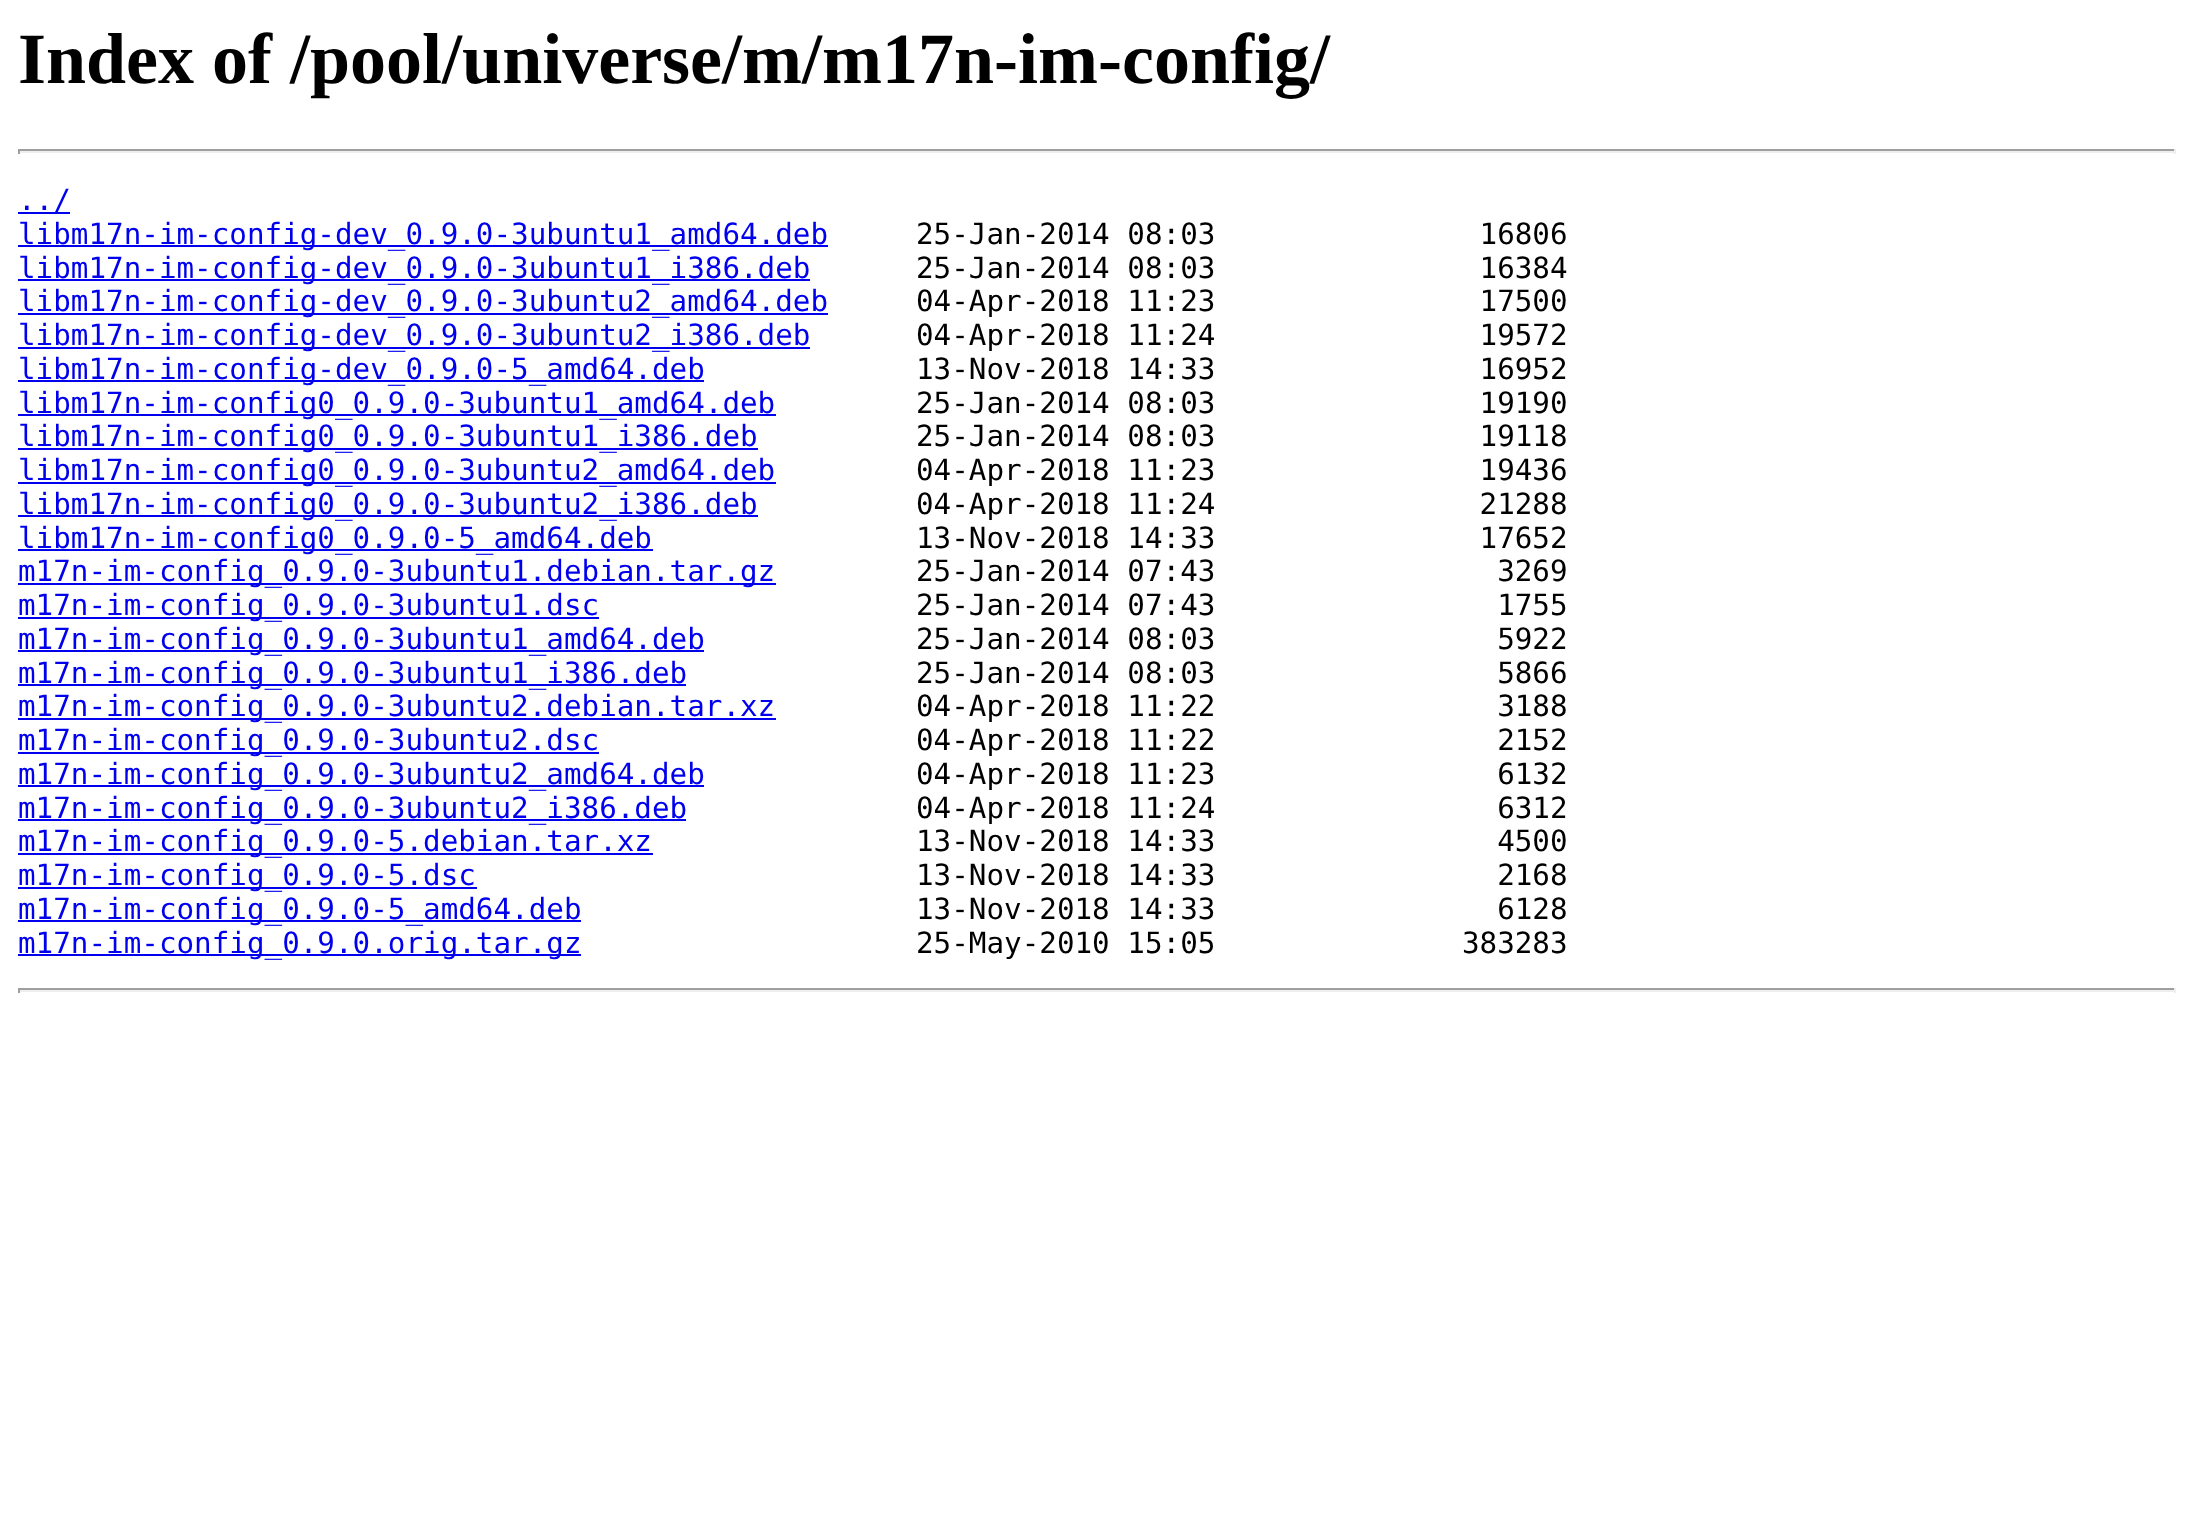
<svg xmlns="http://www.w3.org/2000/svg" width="2193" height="1524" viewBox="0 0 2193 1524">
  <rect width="100%" height="100%" fill="#ffffff"/>
  <text x="18" y="83" font-family="Liberation Serif" font-size="72" font-weight="bold" fill="#000000">Index of /pool/universe/m/m17n-im-config/</text>
  <rect x="18" y="149" width="2158" height="2" fill="#9f9f9f"/>
  <rect x="2174" y="149" width="2" height="5" fill="#eeeeee"/>
  <rect x="18" y="151" width="2158" height="2" fill="#eeeeee"/>
  <rect x="18" y="149" width="2" height="5" fill="#9f9f9f"/>
  <rect x="18" y="212" width="52" height="2" fill="#0000ee"/>
  <text x="18" y="210" font-family="DejaVu Sans Mono" font-size="29.25" fill="#0000ee">../</text>
  <rect x="18" y="245" width="810" height="2" fill="#0000ee"/>
  <text x="18" y="244" font-family="DejaVu Sans Mono" font-size="29.25" fill="#0000ee">libm17n-im-config-dev_0.9.0-3ubuntu1_amd64.deb</text>
  <text x="916" y="244" font-family="DejaVu Sans Mono" font-size="29.25" fill="#000000" xml:space="preserve">25-Jan-2014 08:03               16806</text>
  <rect x="18" y="279" width="792" height="2" fill="#0000ee"/>
  <text x="18" y="278" font-family="DejaVu Sans Mono" font-size="29.25" fill="#0000ee">libm17n-im-config-dev_0.9.0-3ubuntu1_i386.deb</text>
  <text x="916" y="278" font-family="DejaVu Sans Mono" font-size="29.25" fill="#000000" xml:space="preserve">25-Jan-2014 08:03               16384</text>
  <rect x="18" y="313" width="810" height="2" fill="#0000ee"/>
  <text x="18" y="311" font-family="DejaVu Sans Mono" font-size="29.25" fill="#0000ee">libm17n-im-config-dev_0.9.0-3ubuntu2_amd64.deb</text>
  <text x="916" y="311" font-family="DejaVu Sans Mono" font-size="29.25" fill="#000000" xml:space="preserve">04-Apr-2018 11:23               17500</text>
  <rect x="18" y="347" width="792" height="2" fill="#0000ee"/>
  <text x="18" y="345" font-family="DejaVu Sans Mono" font-size="29.25" fill="#0000ee">libm17n-im-config-dev_0.9.0-3ubuntu2_i386.deb</text>
  <text x="916" y="345" font-family="DejaVu Sans Mono" font-size="29.25" fill="#000000" xml:space="preserve">04-Apr-2018 11:24               19572</text>
  <rect x="18" y="380" width="686" height="2" fill="#0000ee"/>
  <text x="18" y="379" font-family="DejaVu Sans Mono" font-size="29.25" fill="#0000ee">libm17n-im-config-dev_0.9.0-5_amd64.deb</text>
  <text x="916" y="379" font-family="DejaVu Sans Mono" font-size="29.25" fill="#000000" xml:space="preserve">13-Nov-2018 14:33               16952</text>
  <rect x="18" y="414" width="758" height="2" fill="#0000ee"/>
  <text x="18" y="413" font-family="DejaVu Sans Mono" font-size="29.25" fill="#0000ee">libm17n-im-config0_0.9.0-3ubuntu1_amd64.deb</text>
  <text x="916" y="413" font-family="DejaVu Sans Mono" font-size="29.25" fill="#000000" xml:space="preserve">25-Jan-2014 08:03               19190</text>
  <rect x="18" y="448" width="740" height="2" fill="#0000ee"/>
  <text x="18" y="446" font-family="DejaVu Sans Mono" font-size="29.25" fill="#0000ee">libm17n-im-config0_0.9.0-3ubuntu1_i386.deb</text>
  <text x="916" y="446" font-family="DejaVu Sans Mono" font-size="29.25" fill="#000000" xml:space="preserve">25-Jan-2014 08:03               19118</text>
  <rect x="18" y="482" width="758" height="2" fill="#0000ee"/>
  <text x="18" y="480" font-family="DejaVu Sans Mono" font-size="29.25" fill="#0000ee">libm17n-im-config0_0.9.0-3ubuntu2_amd64.deb</text>
  <text x="916" y="480" font-family="DejaVu Sans Mono" font-size="29.25" fill="#000000" xml:space="preserve">04-Apr-2018 11:23               19436</text>
  <rect x="18" y="515" width="740" height="2" fill="#0000ee"/>
  <text x="18" y="514" font-family="DejaVu Sans Mono" font-size="29.25" fill="#0000ee">libm17n-im-config0_0.9.0-3ubuntu2_i386.deb</text>
  <text x="916" y="514" font-family="DejaVu Sans Mono" font-size="29.25" fill="#000000" xml:space="preserve">04-Apr-2018 11:24               21288</text>
  <rect x="18" y="549" width="635" height="2" fill="#0000ee"/>
  <text x="18" y="548" font-family="DejaVu Sans Mono" font-size="29.25" fill="#0000ee">libm17n-im-config0_0.9.0-5_amd64.deb</text>
  <text x="916" y="548" font-family="DejaVu Sans Mono" font-size="29.25" fill="#000000" xml:space="preserve">13-Nov-2018 14:33               17652</text>
  <rect x="18" y="583" width="758" height="2" fill="#0000ee"/>
  <text x="18" y="581" font-family="DejaVu Sans Mono" font-size="29.25" fill="#0000ee">m17n-im-config_0.9.0-3ubuntu1.debian.tar.gz</text>
  <text x="916" y="581" font-family="DejaVu Sans Mono" font-size="29.25" fill="#000000" xml:space="preserve">25-Jan-2014 07:43                3269</text>
  <rect x="18" y="617" width="581" height="2" fill="#0000ee"/>
  <text x="18" y="615" font-family="DejaVu Sans Mono" font-size="29.25" fill="#0000ee">m17n-im-config_0.9.0-3ubuntu1.dsc</text>
  <text x="916" y="615" font-family="DejaVu Sans Mono" font-size="29.25" fill="#000000" xml:space="preserve">25-Jan-2014 07:43                1755</text>
  <rect x="18" y="650" width="686" height="2" fill="#0000ee"/>
  <text x="18" y="649" font-family="DejaVu Sans Mono" font-size="29.25" fill="#0000ee">m17n-im-config_0.9.0-3ubuntu1_amd64.deb</text>
  <text x="916" y="649" font-family="DejaVu Sans Mono" font-size="29.25" fill="#000000" xml:space="preserve">25-Jan-2014 08:03                5922</text>
  <rect x="18" y="684" width="668" height="2" fill="#0000ee"/>
  <text x="18" y="683" font-family="DejaVu Sans Mono" font-size="29.25" fill="#0000ee">m17n-im-config_0.9.0-3ubuntu1_i386.deb</text>
  <text x="916" y="683" font-family="DejaVu Sans Mono" font-size="29.25" fill="#000000" xml:space="preserve">25-Jan-2014 08:03                5866</text>
  <rect x="18" y="718" width="758" height="2" fill="#0000ee"/>
  <text x="18" y="716" font-family="DejaVu Sans Mono" font-size="29.25" fill="#0000ee">m17n-im-config_0.9.0-3ubuntu2.debian.tar.xz</text>
  <text x="916" y="716" font-family="DejaVu Sans Mono" font-size="29.25" fill="#000000" xml:space="preserve">04-Apr-2018 11:22                3188</text>
  <rect x="18" y="752" width="581" height="2" fill="#0000ee"/>
  <text x="18" y="750" font-family="DejaVu Sans Mono" font-size="29.25" fill="#0000ee">m17n-im-config_0.9.0-3ubuntu2.dsc</text>
  <text x="916" y="750" font-family="DejaVu Sans Mono" font-size="29.25" fill="#000000" xml:space="preserve">04-Apr-2018 11:22                2152</text>
  <rect x="18" y="785" width="686" height="2" fill="#0000ee"/>
  <text x="18" y="784" font-family="DejaVu Sans Mono" font-size="29.25" fill="#0000ee">m17n-im-config_0.9.0-3ubuntu2_amd64.deb</text>
  <text x="916" y="784" font-family="DejaVu Sans Mono" font-size="29.25" fill="#000000" xml:space="preserve">04-Apr-2018 11:23                6132</text>
  <rect x="18" y="819" width="668" height="2" fill="#0000ee"/>
  <text x="18" y="818" font-family="DejaVu Sans Mono" font-size="29.25" fill="#0000ee">m17n-im-config_0.9.0-3ubuntu2_i386.deb</text>
  <text x="916" y="818" font-family="DejaVu Sans Mono" font-size="29.25" fill="#000000" xml:space="preserve">04-Apr-2018 11:24                6312</text>
  <rect x="18" y="853" width="635" height="2" fill="#0000ee"/>
  <text x="18" y="851" font-family="DejaVu Sans Mono" font-size="29.25" fill="#0000ee">m17n-im-config_0.9.0-5.debian.tar.xz</text>
  <text x="916" y="851" font-family="DejaVu Sans Mono" font-size="29.25" fill="#000000" xml:space="preserve">13-Nov-2018 14:33                4500</text>
  <rect x="18" y="887" width="459" height="2" fill="#0000ee"/>
  <text x="18" y="885" font-family="DejaVu Sans Mono" font-size="29.25" fill="#0000ee">m17n-im-config_0.9.0-5.dsc</text>
  <text x="916" y="885" font-family="DejaVu Sans Mono" font-size="29.25" fill="#000000" xml:space="preserve">13-Nov-2018 14:33                2168</text>
  <rect x="18" y="920" width="563" height="2" fill="#0000ee"/>
  <text x="18" y="919" font-family="DejaVu Sans Mono" font-size="29.25" fill="#0000ee">m17n-im-config_0.9.0-5_amd64.deb</text>
  <text x="916" y="919" font-family="DejaVu Sans Mono" font-size="29.25" fill="#000000" xml:space="preserve">13-Nov-2018 14:33                6128</text>
  <rect x="18" y="954" width="563" height="2" fill="#0000ee"/>
  <text x="18" y="953" font-family="DejaVu Sans Mono" font-size="29.25" fill="#0000ee">m17n-im-config_0.9.0.orig.tar.gz</text>
  <text x="916" y="953" font-family="DejaVu Sans Mono" font-size="29.25" fill="#000000" xml:space="preserve">25-May-2010 15:05              383283</text>
  <rect x="18" y="988" width="2158" height="2" fill="#9f9f9f"/>
  <rect x="2174" y="988" width="2" height="5" fill="#eeeeee"/>
  <rect x="18" y="990" width="2158" height="2" fill="#eeeeee"/>
  <rect x="18" y="988" width="2" height="5" fill="#9f9f9f"/>
</svg>
